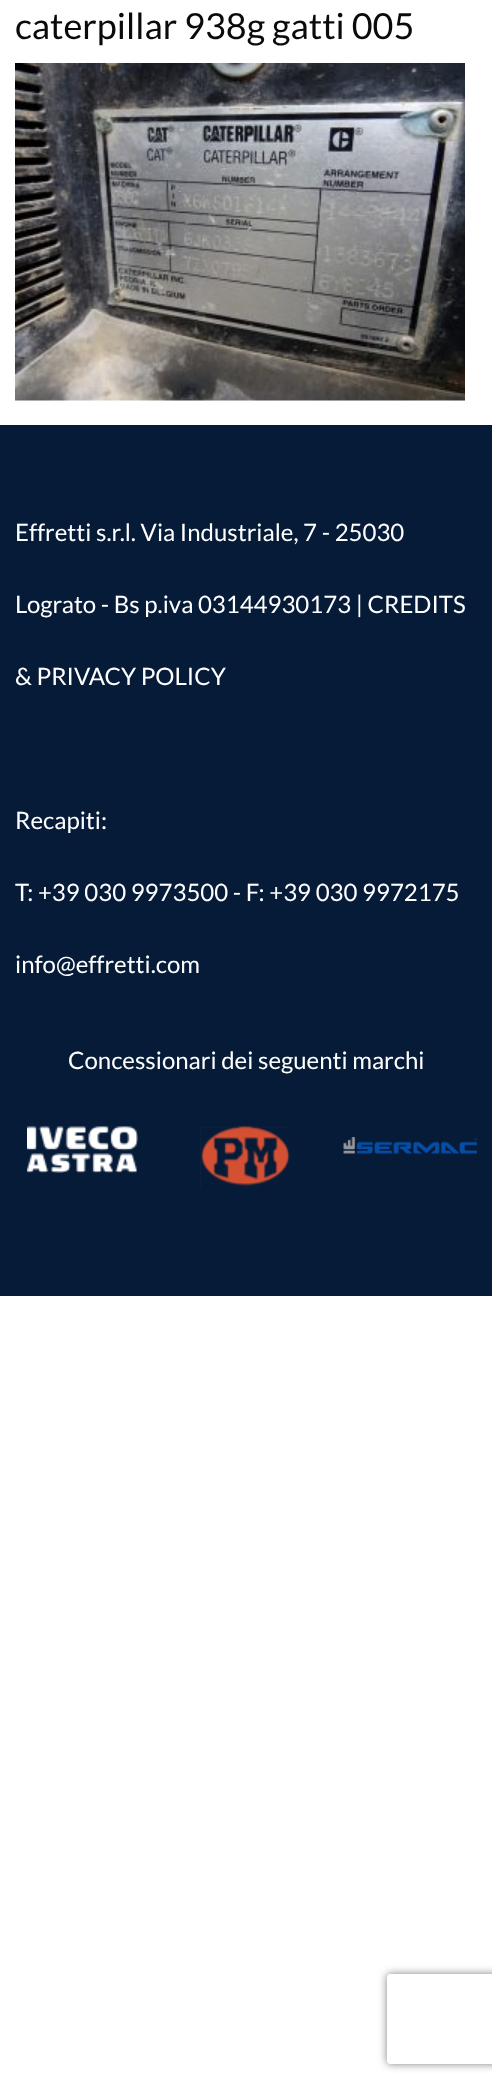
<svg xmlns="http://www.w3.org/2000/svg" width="492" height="2085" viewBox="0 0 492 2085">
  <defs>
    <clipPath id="clip1"><path d="M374 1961H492V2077H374ZM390 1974H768C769.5 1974 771 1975.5 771 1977V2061C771 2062.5 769.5 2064 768 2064H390C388.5 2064 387 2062.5 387 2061V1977C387 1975.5 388.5 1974 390 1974Z" clip-rule="evenodd"/></clipPath>
    <filter id="blur1" x="-50%" y="-200%" width="200%" height="500%"><feGaussianBlur stdDeviation="4"/></filter>
  </defs>
  <rect width="100%" height="100%" fill="#ffffff"/>
  <text x="15" y="39" font-family="Lato" font-size="36" fill="#0a0a0a">caterpillar 938g gatti 005</text>
  <image x="15" y="63" width="450" height="338" href="img1.png"/>
  <rect x="0" y="425" width="492" height="871" fill="#061b37"/>
  <text x="15" y="541" font-family="Lato" font-size="24" fill="#ffffff">Effretti s.r.l. Via Industriale, 7 - 25030</text>
  <text x="15" y="613" font-family="Lato" font-size="24" fill="#ffffff">Lograto - Bs p.iva 03144930173 | CREDITS</text>
  <text x="15" y="685" font-family="Lato" font-size="24" fill="#ffffff">&amp; PRIVACY POLICY</text>
  <text x="15" y="829" font-family="Lato" font-size="24" fill="#ffffff">Recapiti:</text>
  <text x="15" y="901" font-family="Lato" font-size="24" fill="#ffffff">T: +39 030 9973500 - F: +39 030 9972175</text>
  <text x="15" y="973" font-family="Lato" font-size="24" fill="#ffffff">info@effretti.com</text>
  <text x="68" y="1069" font-family="Lato" font-size="24" fill="#ffffff">Concessionari dei seguenti marchi</text>
  <image x="27" y="1126" width="111" height="47" href="img2.png"/>
  <image x="200" y="1126" width="90" height="62" href="img3.png"/>
  <image x="343" y="1137" width="134" height="17" href="img4.png"/>
  <g clip-path="url(#clip1)">
    <rect x="387" y="1974" width="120" height="90" rx="3" fill="#808080" filter="url(#blur1)"/>
  </g>
</svg>
